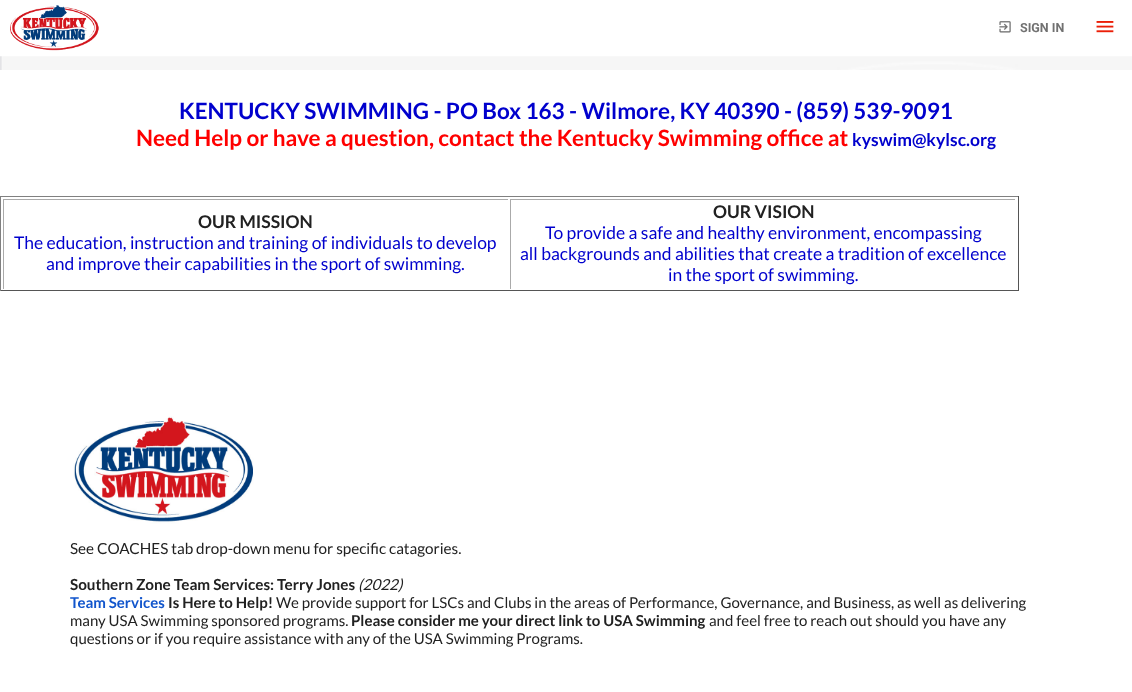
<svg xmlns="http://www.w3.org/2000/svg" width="1132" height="692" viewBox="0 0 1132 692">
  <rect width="100%" height="100%" fill="#ffffff"/>
  <image x="10" y="5" width="89" height="46" href="img1.png"/>
  <image x="999" y="21" width="12" height="12" href="img2.png"/>
  <text x="1020" y="32" font-family="Roboto" font-size="12.5" font-weight="bold" fill="#717171">SIGN IN</text>
  <image x="1096" y="21" width="18" height="12" href="img3.png"/>
  <image x="0" y="56" width="1132" height="14" href="img4.png"/>
  <text x="179" y="119" font-family="Lato" font-size="22.5" font-weight="bold" fill="#0000cd">KENTUCKY SWIMMING - PO Box 163 - Wilmore, KY 40390 - (859) 539-9091</text>
  <text x="136" y="146" font-family="Lato" font-size="22.5" font-weight="bold" fill="#ff0000">Need Help or have a question, contact the Kentucky Swimming office at</text>
  <text x="852" y="146" font-family="Lato" font-size="17.5" font-weight="bold" fill="#0000cd">kyswim@kylsc.org</text>
  <rect x="0" y="196" width="1019" height="1" fill="#808080"/>
  <rect x="1018" y="196" width="1" height="95" fill="#555555"/>
  <rect x="0" y="290" width="1019" height="1" fill="#555555"/>
  <rect x="0" y="196" width="1" height="95" fill="#808080"/>
  <rect x="3" y="199" width="506" height="1" fill="#aaaaaa"/>
  <rect x="508" y="199" width="1" height="1" fill="#ffffff"/>
  <rect x="3" y="199" width="1" height="90" fill="#aaaaaa"/>
  <text x="198" y="228" font-family="Lato" font-size="17.5" font-weight="bold" fill="#212121">OUR MISSION</text>
  <text x="14" y="249" font-family="Lato" font-size="17.5" fill="#0000cd">The education, instruction and training of individuals to develop</text>
  <text x="46" y="270" font-family="Lato" font-size="17.5" fill="#0000cd">and improve their capabilities in the sport of swimming.</text>
  <rect x="510" y="199" width="506" height="1" fill="#aaaaaa"/>
  <rect x="1015" y="199" width="1" height="1" fill="#ffffff"/>
  <rect x="510" y="199" width="1" height="90" fill="#aaaaaa"/>
  <text x="713" y="218" font-family="Lato" font-size="17.5" font-weight="bold" fill="#212121">OUR VISION</text>
  <text x="545" y="239" font-family="Lato" font-size="17.5" fill="#0000cd">To provide a safe and healthy environment, encompassing</text>
  <text x="520" y="260" font-family="Lato" font-size="17.5" fill="#0000cd">all backgrounds and abilities that create a tradition of excellence</text>
  <text x="668" y="281" font-family="Lato" font-size="17.5" fill="#0000cd">in the sport of swimming.</text>
  <image x="73" y="416" width="181" height="108" href="img5.png"/>
  <text x="70" y="554" font-family="Lato" font-size="15.25" fill="#212121">See COACHES tab drop-down menu for specific catagories.</text>
  <text x="70" y="590" font-family="Lato" font-size="15.25" font-weight="bold" fill="#212121">Southern Zone Team Services: Terry Jones</text>
  <text x="358" y="590" font-family="Lato" font-size="15.25" font-style="italic" fill="#212121">(2022)</text>
  <text x="70" y="608" font-family="Lato" font-size="15" font-weight="bold" fill="#1155cc">Team Services</text>
  <text x="168" y="608" font-family="Lato" font-size="15" font-weight="bold" fill="#212121">Is Here to Help!</text>
  <text x="276" y="608" font-family="Lato" font-size="15" fill="#212121">We provide support for LSCs and Clubs in the areas of Performance, Governance, and Business, as well as delivering</text>
  <text x="70" y="626" font-family="Lato" font-size="15" fill="#212121">many USA Swimming sponsored programs.</text>
  <text x="351" y="626" font-family="Lato" font-size="15" font-weight="bold" fill="#212121">Please consider me your direct link to USA Swimming</text>
  <text x="709" y="626" font-family="Lato" font-size="15" fill="#212121">and feel free to reach out should you have any</text>
  <text x="70" y="644" font-family="Lato" font-size="15" fill="#212121">questions or if you require assistance with any of the USA Swimming Programs.</text>
</svg>
